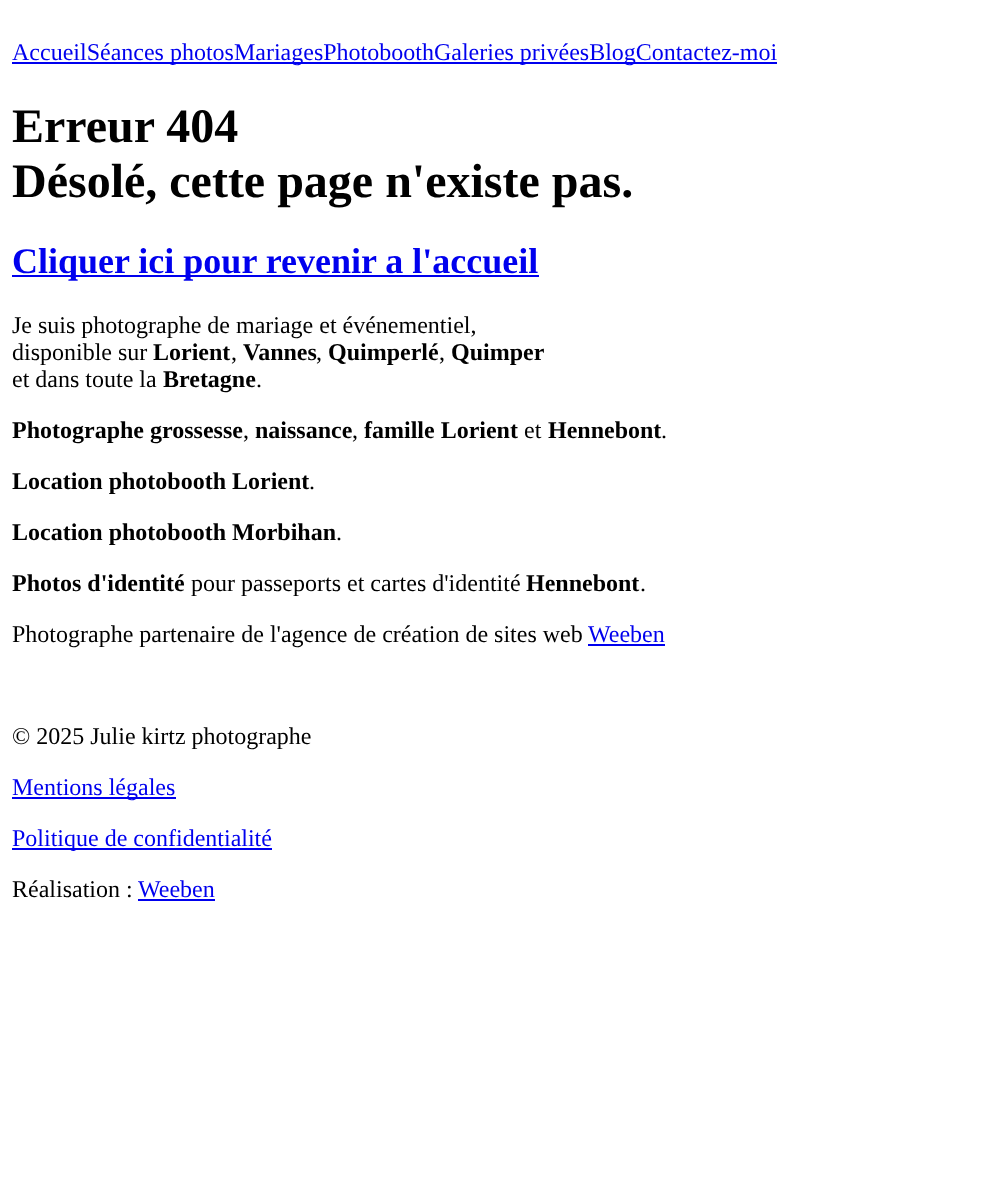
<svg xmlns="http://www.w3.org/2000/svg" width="1001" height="1194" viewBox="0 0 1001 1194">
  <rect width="100%" height="100%" fill="#ffffff"/>
  <rect x="12" y="62" width="765" height="2" fill="#0000ee"/>
  <text x="12" y="60" font-family="Liberation Serif" font-size="24" fill="#0000ee">AccueilSéances photosMariagesPhotoboothGaleries privéesBlogContactez-moi</text>
  <text x="12" y="142" font-family="Liberation Serif" font-size="48" font-weight="bold" fill="#000000">Erreur 404</text>
  <text x="12" y="197" font-family="Liberation Serif" font-size="48" font-weight="bold" fill="#000000">Désolé, cette page n'existe pas.</text>
  <rect x="12" y="275" width="527" height="2" fill="#0000ee"/>
  <text x="12" y="273" font-family="Liberation Serif" font-size="36" font-weight="bold" fill="#0000ee">Cliquer ici pour revenir a l'accueil</text>
  <text x="12" y="333" font-family="Liberation Serif" font-size="24" fill="#000000">Je suis photographe de mariage et événementiel,</text>
  <text x="12" y="360" font-family="Liberation Serif" font-size="24" fill="#000000">disponible sur</text>
  <text x="153" y="360" font-family="Liberation Serif" font-size="24" font-weight="bold" fill="#000000">Lorient</text>
  <text x="231" y="360" font-family="Liberation Serif" font-size="24" fill="#000000">,</text>
  <text x="243" y="360" font-family="Liberation Serif" font-size="24" font-weight="bold" fill="#000000">Vannes</text>
  <text x="316" y="360" font-family="Liberation Serif" font-size="24" fill="#000000">,</text>
  <text x="328" y="360" font-family="Liberation Serif" font-size="24" font-weight="bold" fill="#000000">Quimperlé</text>
  <text x="439" y="360" font-family="Liberation Serif" font-size="24" fill="#000000">,</text>
  <text x="451" y="360" font-family="Liberation Serif" font-size="24" font-weight="bold" fill="#000000">Quimper</text>
  <text x="12" y="387" font-family="Liberation Serif" font-size="24" fill="#000000">et dans toute la</text>
  <text x="163" y="387" font-family="Liberation Serif" font-size="24" font-weight="bold" fill="#000000">Bretagne</text>
  <text x="256" y="387" font-family="Liberation Serif" font-size="24" fill="#000000">.</text>
  <text x="12" y="438" font-family="Liberation Serif" font-size="24" font-weight="bold" fill="#000000">Photographe grossesse</text>
  <text x="243" y="438" font-family="Liberation Serif" font-size="24" fill="#000000">,</text>
  <text x="255" y="438" font-family="Liberation Serif" font-size="24" font-weight="bold" fill="#000000">naissance</text>
  <text x="352" y="438" font-family="Liberation Serif" font-size="24" fill="#000000">,</text>
  <text x="364" y="438" font-family="Liberation Serif" font-size="24" font-weight="bold" fill="#000000">famille Lorient</text>
  <text x="524" y="438" font-family="Liberation Serif" font-size="24" fill="#000000">et</text>
  <text x="548" y="438" font-family="Liberation Serif" font-size="24" font-weight="bold" fill="#000000">Hennebont</text>
  <text x="661" y="438" font-family="Liberation Serif" font-size="24" fill="#000000">.</text>
  <text x="12" y="489" font-family="Liberation Serif" font-size="24" font-weight="bold" fill="#000000">Location photobooth Lorient</text>
  <text x="309" y="489" font-family="Liberation Serif" font-size="24" fill="#000000">.</text>
  <text x="12" y="540" font-family="Liberation Serif" font-size="24" font-weight="bold" fill="#000000">Location photobooth Morbihan</text>
  <text x="336" y="540" font-family="Liberation Serif" font-size="24" fill="#000000">.</text>
  <text x="12" y="591" font-family="Liberation Serif" font-size="24" font-weight="bold" fill="#000000">Photos d'identité</text>
  <text x="191" y="591" font-family="Liberation Serif" font-size="24" fill="#000000">pour passeports et cartes d'identité</text>
  <text x="526" y="591" font-family="Liberation Serif" font-size="24" font-weight="bold" fill="#000000">Hennebont</text>
  <text x="640" y="591" font-family="Liberation Serif" font-size="24" fill="#000000">.</text>
  <text x="12" y="642" font-family="Liberation Serif" font-size="24" fill="#000000">Photographe partenaire de l'agence de création de sites web</text>
  <text x="588" y="642" font-family="Liberation Serif" font-size="24" fill="#0000ee">Weeben</text>
  <rect x="588" y="644" width="77" height="2" fill="#0000ee"/>
  <text x="12" y="744" font-family="Liberation Serif" font-size="24" fill="#000000">© 2025 Julie kirtz photographe</text>
  <rect x="12" y="797" width="164" height="2" fill="#0000ee"/>
  <text x="12" y="795" font-family="Liberation Serif" font-size="24" fill="#0000ee">Mentions légales</text>
  <rect x="12" y="848" width="260" height="2" fill="#0000ee"/>
  <text x="12" y="846" font-family="Liberation Serif" font-size="24" fill="#0000ee">Politique de confidentialité</text>
  <text x="12" y="897" font-family="Liberation Serif" font-size="24" fill="#000000">Réalisation :</text>
  <text x="138" y="897" font-family="Liberation Serif" font-size="24" fill="#0000ee">Weeben</text>
  <rect x="138" y="899" width="77" height="2" fill="#0000ee"/>
</svg>
